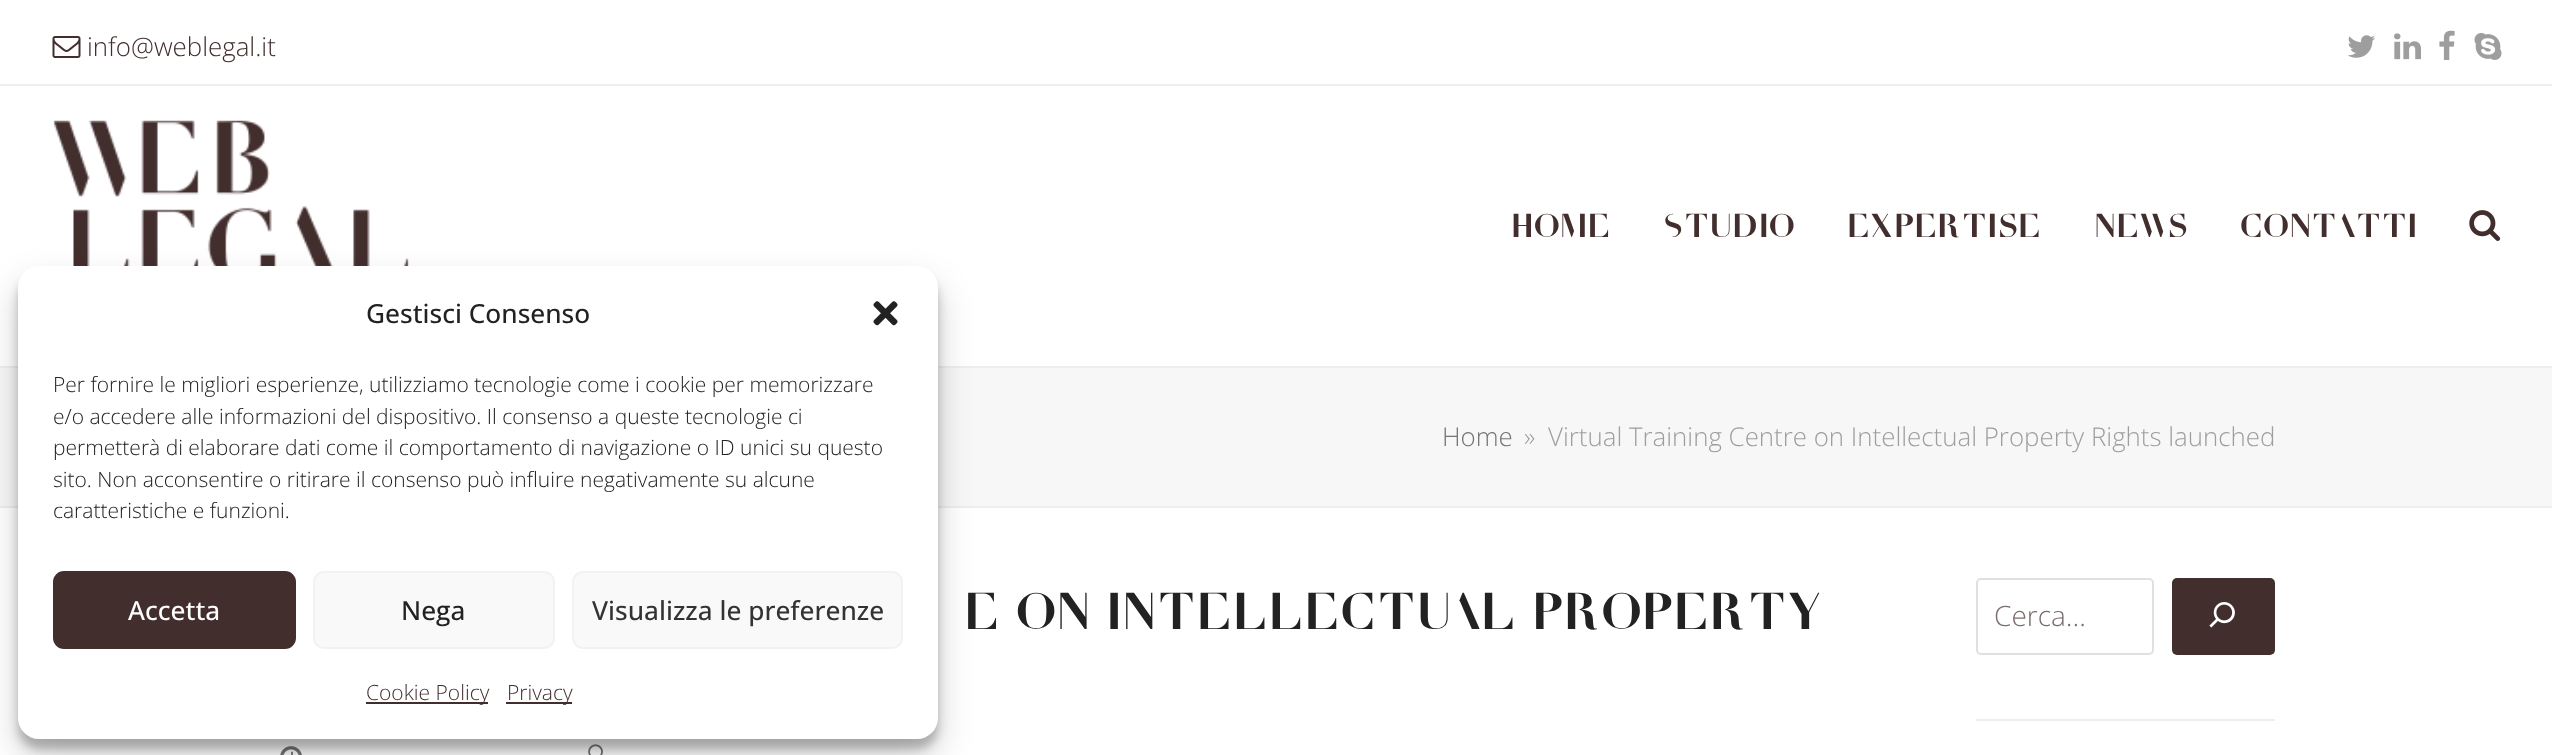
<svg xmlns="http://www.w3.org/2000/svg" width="2552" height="755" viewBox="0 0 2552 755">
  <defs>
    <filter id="blur1" x="-50%" y="-200%" width="200%" height="500%"><feGaussianBlur stdDeviation="5"/></filter>
    <filter id="blur2" x="-50%" y="-200%" width="200%" height="500%"><feGaussianBlur stdDeviation="17.5"/></filter>
  </defs>
  <rect width="100%" height="100%" fill="#ffffff"/>
  <rect x="0" y="84" width="2552" height="2" fill="#eeeeee"/>
  <image x="52" y="36" width="29" height="22" href="img1.png"/>
  <text x="87" y="56" font-family="Open Sans" font-size="25.85" font-weight="300" fill="#432e2e">info@weblegal.it</text>
  <image x="2347" y="35" width="28" height="23" href="img2.png"/>
  <image x="2394" y="33" width="27" height="27" href="img3.png"/>
  <image x="2439" y="30" width="16" height="30" href="img4.png"/>
  <image x="2474" y="33" width="28" height="27" href="img5.png"/>
  <image x="53" y="120" width="356" height="146" href="img6.png"/>
  <text x="1511" y="237" font-family="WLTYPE" font-size="33.25" fill="#432e2e">Home</text>
  <text x="1664" y="237" font-family="WLTYPE" font-size="33.25" fill="#432e2e">Studio</text>
  <text x="1847" y="237" font-family="WLTYPE" font-size="33.25" fill="#432e2e">Expertise</text>
  <text x="2094" y="237" font-family="WLTYPE" font-size="33.25" fill="#432e2e">News</text>
  <text x="2240" y="237" font-family="WLTYPE" font-size="33.25" fill="#432e2e">Contatti</text>
  <image x="2469" y="210" width="32" height="31" href="img7.png"/>
  <rect x="0" y="368" width="2552" height="138" fill="#f7f7f7"/>
  <rect x="0" y="366" width="2552" height="2" fill="#eeeeee"/>
  <rect x="0" y="506" width="2552" height="2" fill="#eeeeee"/>
  <text x="1442" y="446" font-family="Open Sans" font-size="25.85" font-weight="300" fill="#757575">Home</text>
  <text x="1524" y="446" font-family="Open Sans" font-size="25.85" font-weight="300" fill="#9e9e9e">»</text>
  <text x="1548" y="446" font-family="Open Sans" font-size="25.85" font-weight="300" fill="#9e9e9e">Virtual Training Centre on Intellectual Property Rights launched</text>
  <text x="964" y="629" font-family="WLTYPE" font-size="51.75" fill="#222222">e on Intellectual Property</text>
  <image x="280" y="746" width="22" height="9" href="img8.png"/>
  <image x="588" y="744" width="15" height="11" href="img9.png"/>
  <rect x="1977" y="579" width="176" height="75" rx="4" fill="none" stroke="#e0e0e0" stroke-width="2"/>
  <text x="1994" y="626" font-family="Open Sans" font-size="28" font-weight="300" fill="#7b6d6d">Cerca...</text>
  <rect x="2172" y="578" width="103" height="77" rx="5" fill="#432e2e"/>
  <image x="2209" y="602" width="26" height="26" href="img10.png"/>
  <rect x="1976" y="719" width="299" height="2" fill="#eeeeee"/>
  <rect x="18" y="277" width="920" height="472" rx="21" fill="#000000" fill-opacity="0.23" filter="url(#blur1)"/>
  <rect x="18" y="284" width="920" height="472" rx="21" fill="#000000" fill-opacity="0.19" filter="url(#blur2)"/>
  <rect x="18" y="266" width="920" height="473" rx="21" fill="#ffffff"/>
  <text x="366" y="323" font-family="Open Sans" font-size="26.25" font-weight="500" fill="#222222">Gestisci Consenso</text>
  <image x="873" y="301" width="25" height="25" href="img11.png"/>
  <text x="53" y="392" font-family="Open Sans" font-size="21" font-weight="300" fill="#222222">Per fornire le migliori esperienze, utilizziamo tecnologie come i cookie per memorizzare</text>
  <text x="53" y="424" font-family="Open Sans" font-size="21" font-weight="300" fill="#222222">e/o accedere alle informazioni del dispositivo. Il consenso a queste tecnologie ci</text>
  <text x="53" y="455" font-family="Open Sans" font-size="21" font-weight="300" fill="#222222">permetterà di elaborare dati come il comportamento di navigazione o ID unici su questo</text>
  <text x="53" y="487" font-family="Open Sans" font-size="21" font-weight="300" fill="#222222">sito. Non acconsentire o ritirare il consenso può influire negativamente su alcune</text>
  <text x="53" y="518" font-family="Open Sans" font-size="21" font-weight="300" fill="#222222">caratteristiche e funzioni.</text>
  <rect x="54" y="572" width="241" height="76" rx="10" fill="#432e2e" stroke="#432e2e" stroke-width="2"/>
  <text x="128" y="620" font-family="Open Sans" font-size="26.25" font-weight="500" fill="#ffffff">Accetta</text>
  <rect x="314" y="572" width="240" height="76" rx="10" fill="#f9f9f9" stroke="#f2f2f2" stroke-width="2"/>
  <text x="401" y="620" font-family="Open Sans" font-size="26.25" font-weight="500" fill="#222222">Nega</text>
  <rect x="573" y="572" width="329" height="76" rx="10" fill="#f9f9f9" stroke="#f2f2f2" stroke-width="2"/>
  <text x="592" y="620" font-family="Open Sans" font-size="26.25" font-weight="500" fill="#333333">Visualizza le preferenze</text>
  <rect x="366" y="702" width="122" height="2" fill="#432e2e"/>
  <text x="366" y="700" font-family="Open Sans" font-size="21" font-weight="300" fill="#432e2e">Cookie Policy</text>
  <rect x="506" y="702" width="66" height="2" fill="#432e2e"/>
  <text x="507" y="700" font-family="Open Sans" font-size="21" font-weight="300" fill="#432e2e">Privacy</text>
</svg>
